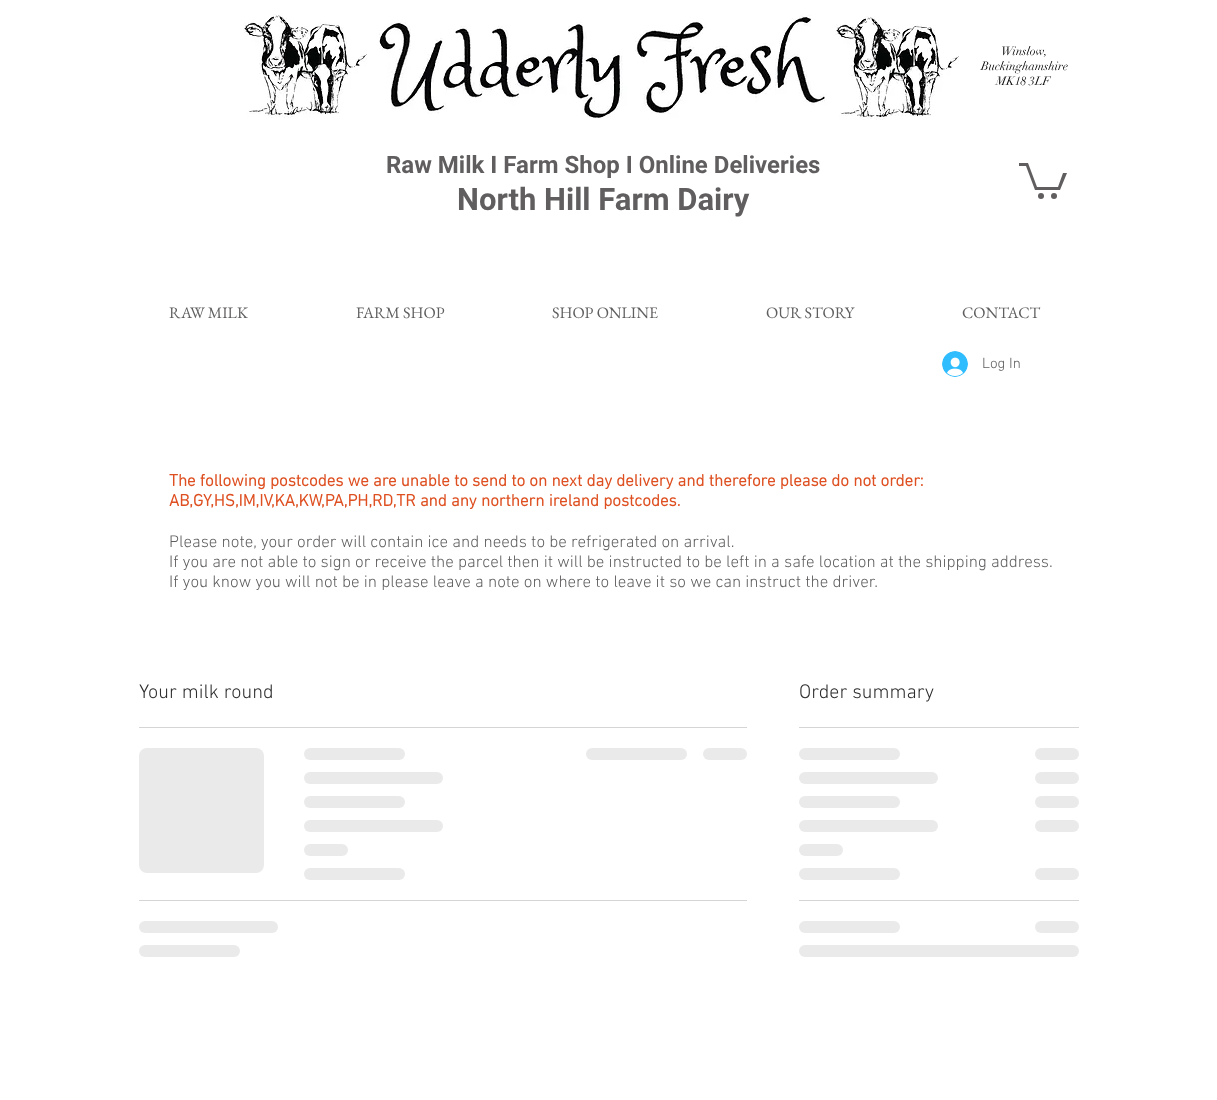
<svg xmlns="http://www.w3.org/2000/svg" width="1217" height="1100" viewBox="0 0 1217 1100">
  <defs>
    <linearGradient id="g1" gradientUnits="userSpaceOnUse" x1="139" y1="811" x2="639" y2="811"><stop offset="0.25" stop-color="#eaeaea"/><stop offset="0.37" stop-color="#d5d5d5"/><stop offset="0.63" stop-color="#eaeaea"/></linearGradient>
    <linearGradient id="g2" gradientUnits="userSpaceOnUse" x1="304" y1="754" x2="708" y2="754"><stop offset="0.25" stop-color="#eaeaea"/><stop offset="0.37" stop-color="#d5d5d5"/><stop offset="0.63" stop-color="#eaeaea"/></linearGradient>
    <linearGradient id="g3" gradientUnits="userSpaceOnUse" x1="304" y1="778" x2="860" y2="778"><stop offset="0.25" stop-color="#eaeaea"/><stop offset="0.37" stop-color="#d5d5d5"/><stop offset="0.63" stop-color="#eaeaea"/></linearGradient>
    <linearGradient id="g4" gradientUnits="userSpaceOnUse" x1="304" y1="802" x2="708" y2="802"><stop offset="0.25" stop-color="#eaeaea"/><stop offset="0.37" stop-color="#d5d5d5"/><stop offset="0.63" stop-color="#eaeaea"/></linearGradient>
    <linearGradient id="g5" gradientUnits="userSpaceOnUse" x1="304" y1="826" x2="860" y2="826"><stop offset="0.25" stop-color="#eaeaea"/><stop offset="0.37" stop-color="#d5d5d5"/><stop offset="0.63" stop-color="#eaeaea"/></linearGradient>
    <linearGradient id="g6" gradientUnits="userSpaceOnUse" x1="304" y1="850" x2="480" y2="850"><stop offset="0.25" stop-color="#eaeaea"/><stop offset="0.37" stop-color="#d5d5d5"/><stop offset="0.63" stop-color="#eaeaea"/></linearGradient>
    <linearGradient id="g7" gradientUnits="userSpaceOnUse" x1="304" y1="874" x2="708" y2="874"><stop offset="0.25" stop-color="#eaeaea"/><stop offset="0.37" stop-color="#d5d5d5"/><stop offset="0.63" stop-color="#eaeaea"/></linearGradient>
    <linearGradient id="g8" gradientUnits="userSpaceOnUse" x1="586" y1="754" x2="990" y2="754"><stop offset="0.25" stop-color="#eaeaea"/><stop offset="0.37" stop-color="#d5d5d5"/><stop offset="0.63" stop-color="#eaeaea"/></linearGradient>
    <linearGradient id="g9" gradientUnits="userSpaceOnUse" x1="703" y1="754" x2="879" y2="754"><stop offset="0.25" stop-color="#eaeaea"/><stop offset="0.37" stop-color="#d5d5d5"/><stop offset="0.63" stop-color="#eaeaea"/></linearGradient>
    <linearGradient id="g10" gradientUnits="userSpaceOnUse" x1="139" y1="927" x2="695" y2="927"><stop offset="0.25" stop-color="#eaeaea"/><stop offset="0.37" stop-color="#d5d5d5"/><stop offset="0.63" stop-color="#eaeaea"/></linearGradient>
    <linearGradient id="g11" gradientUnits="userSpaceOnUse" x1="139" y1="951" x2="543" y2="951"><stop offset="0.25" stop-color="#eaeaea"/><stop offset="0.37" stop-color="#d5d5d5"/><stop offset="0.63" stop-color="#eaeaea"/></linearGradient>
    <linearGradient id="g12" gradientUnits="userSpaceOnUse" x1="799" y1="754" x2="1203" y2="754"><stop offset="0.25" stop-color="#eaeaea"/><stop offset="0.37" stop-color="#d5d5d5"/><stop offset="0.63" stop-color="#eaeaea"/></linearGradient>
    <linearGradient id="g13" gradientUnits="userSpaceOnUse" x1="1035" y1="754" x2="1211" y2="754"><stop offset="0.25" stop-color="#eaeaea"/><stop offset="0.37" stop-color="#d5d5d5"/><stop offset="0.63" stop-color="#eaeaea"/></linearGradient>
    <linearGradient id="g14" gradientUnits="userSpaceOnUse" x1="799" y1="778" x2="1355" y2="778"><stop offset="0.25" stop-color="#eaeaea"/><stop offset="0.37" stop-color="#d5d5d5"/><stop offset="0.63" stop-color="#eaeaea"/></linearGradient>
    <linearGradient id="g15" gradientUnits="userSpaceOnUse" x1="1035" y1="778" x2="1211" y2="778"><stop offset="0.25" stop-color="#eaeaea"/><stop offset="0.37" stop-color="#d5d5d5"/><stop offset="0.63" stop-color="#eaeaea"/></linearGradient>
    <linearGradient id="g16" gradientUnits="userSpaceOnUse" x1="799" y1="802" x2="1203" y2="802"><stop offset="0.25" stop-color="#eaeaea"/><stop offset="0.37" stop-color="#d5d5d5"/><stop offset="0.63" stop-color="#eaeaea"/></linearGradient>
    <linearGradient id="g17" gradientUnits="userSpaceOnUse" x1="1035" y1="802" x2="1211" y2="802"><stop offset="0.25" stop-color="#eaeaea"/><stop offset="0.37" stop-color="#d5d5d5"/><stop offset="0.63" stop-color="#eaeaea"/></linearGradient>
    <linearGradient id="g18" gradientUnits="userSpaceOnUse" x1="799" y1="826" x2="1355" y2="826"><stop offset="0.25" stop-color="#eaeaea"/><stop offset="0.37" stop-color="#d5d5d5"/><stop offset="0.63" stop-color="#eaeaea"/></linearGradient>
    <linearGradient id="g19" gradientUnits="userSpaceOnUse" x1="1035" y1="826" x2="1211" y2="826"><stop offset="0.25" stop-color="#eaeaea"/><stop offset="0.37" stop-color="#d5d5d5"/><stop offset="0.63" stop-color="#eaeaea"/></linearGradient>
    <linearGradient id="g20" gradientUnits="userSpaceOnUse" x1="799" y1="850" x2="975" y2="850"><stop offset="0.25" stop-color="#eaeaea"/><stop offset="0.37" stop-color="#d5d5d5"/><stop offset="0.63" stop-color="#eaeaea"/></linearGradient>
    <linearGradient id="g21" gradientUnits="userSpaceOnUse" x1="799" y1="874" x2="1203" y2="874"><stop offset="0.25" stop-color="#eaeaea"/><stop offset="0.37" stop-color="#d5d5d5"/><stop offset="0.63" stop-color="#eaeaea"/></linearGradient>
    <linearGradient id="g22" gradientUnits="userSpaceOnUse" x1="1035" y1="874" x2="1211" y2="874"><stop offset="0.25" stop-color="#eaeaea"/><stop offset="0.37" stop-color="#d5d5d5"/><stop offset="0.63" stop-color="#eaeaea"/></linearGradient>
    <linearGradient id="g23" gradientUnits="userSpaceOnUse" x1="799" y1="927" x2="1203" y2="927"><stop offset="0.25" stop-color="#eaeaea"/><stop offset="0.37" stop-color="#d5d5d5"/><stop offset="0.63" stop-color="#eaeaea"/></linearGradient>
    <linearGradient id="g24" gradientUnits="userSpaceOnUse" x1="1035" y1="927" x2="1211" y2="927"><stop offset="0.25" stop-color="#eaeaea"/><stop offset="0.37" stop-color="#d5d5d5"/><stop offset="0.63" stop-color="#eaeaea"/></linearGradient>
    <linearGradient id="g25" gradientUnits="userSpaceOnUse" x1="799" y1="951" x2="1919" y2="951"><stop offset="0.25" stop-color="#eaeaea"/><stop offset="0.37" stop-color="#d5d5d5"/><stop offset="0.63" stop-color="#eaeaea"/></linearGradient>
  </defs>
  <rect width="100%" height="100%" fill="#ffffff"/>
  <image x="243" y="14" width="124" height="104" href="img1.png"/>
  <image x="379" y="14" width="448" height="104" href="img2.png"/>
  <image x="835" y="16" width="124" height="104" href="img1.png"/>
  <text x="1001" y="55" font-family="didot" font-size="12" fill="#000000">Winslow,</text>
  <text x="981" y="70" font-family="didot" font-size="12" fill="#000000">Buckinghamshire</text>
  <text x="996" y="85" font-family="didot" font-size="12" fill="#000000">MK18 3LF</text>
  <text x="386" y="173" font-family="Roboto" font-size="24" font-weight="bold" fill="#605e5e">Raw Milk I Farm Shop I Online Deliveries</text>
  <text x="457" y="210" font-family="Roboto" font-size="31" font-weight="bold" fill="#605e5e">North Hill Farm Dairy</text>
  <path d="M1067 173L1060 190H1035L1026 166H1019V163H1028L1037 187H1058L1063 173" fill="#605e5e"/>
  <circle cx="1054" cy="196" r="3" fill="#605e5e"/>
  <circle cx="1041" cy="196" r="3" fill="#605e5e"/>
  <text x="169" y="318" font-family="EB Garamond" font-size="16" fill="#605e5e">RAW MILK</text>
  <text x="356" y="318" font-family="EB Garamond" font-size="16" fill="#605e5e">FARM SHOP</text>
  <text x="552" y="318" font-family="EB Garamond" font-size="16" fill="#605e5e">SHOP ONLINE</text>
  <text x="766" y="318" font-family="EB Garamond" font-size="16" fill="#605e5e">OUR STORY</text>
  <text x="962" y="318" font-family="EB Garamond" font-size="16" fill="#605e5e">CONTACT</text>
  <image x="942" y="351" width="26" height="26" href="img3.png"/>
  <text x="982" y="368" font-family="'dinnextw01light'" font-size="15" font-weight="300" fill="#605e5e">Log In</text>
  <text x="169" y="486" font-family="'dinnextw01light'" font-size="17" font-weight="bold" fill="#de5021">The following postcodes we are unable to send to on next day delivery and therefore please do not order:</text>
  <text x="169" y="506" font-family="'dinnextw01light'" font-size="17" font-weight="bold" fill="#de5021">AB,GY,HS,IM,IV,KA,KW,PA,PH,RD,TR and any northern ireland postcodes.</text>
  <text x="169" y="547" font-family="'dinnextw01light'" font-size="17" font-weight="300" fill="#605e5e">Please note, your order will contain ice and needs to be refrigerated on arrival.</text>
  <text x="169" y="567" font-family="'dinnextw01light'" font-size="17" font-weight="300" fill="#605e5e">If you are not able to sign or receive the parcel then it will be instructed to be left in a safe location at the shipping address.</text>
  <text x="169" y="587" font-family="'dinnextw01light'" font-size="17" font-weight="300" fill="#605e5e">If you know you will not be in please leave a note on where to leave it so we can instruct the driver.</text>
  <rect x="139" y="727" width="608" height="1" fill="#d5d5d5"/>
  <text x="139" y="698" font-family="'dinnextw01light'" font-size="20" font-weight="300" fill="#2f2e2e">Your milk round</text>
  <rect x="139" y="748" width="125" height="125" rx="8" fill="url(#g1)"/>
  <rect x="304" y="748" width="101" height="12" rx="6" fill="url(#g2)"/>
  <rect x="304" y="772" width="139" height="12" rx="6" fill="url(#g3)"/>
  <rect x="304" y="796" width="101" height="12" rx="6" fill="url(#g4)"/>
  <rect x="304" y="820" width="139" height="12" rx="6" fill="url(#g5)"/>
  <rect x="304" y="844" width="44" height="12" rx="6" fill="url(#g6)"/>
  <rect x="304" y="868" width="101" height="12" rx="6" fill="url(#g7)"/>
  <rect x="586" y="748" width="101" height="12" rx="6" fill="url(#g8)"/>
  <rect x="703" y="748" width="44" height="12" rx="6" fill="url(#g9)"/>
  <rect x="139" y="900" width="608" height="1" fill="#d5d5d5"/>
  <rect x="139" y="921" width="139" height="12" rx="6" fill="url(#g10)"/>
  <rect x="139" y="945" width="101" height="12" rx="6" fill="url(#g11)"/>
  <rect x="799" y="727" width="280" height="1" fill="#d5d5d5"/>
  <text x="799" y="698" font-family="'dinnextw01light'" font-size="20" font-weight="300" fill="#2f2e2e">Order summary</text>
  <rect x="799" y="748" width="101" height="12" rx="6" fill="url(#g12)"/>
  <rect x="1035" y="748" width="44" height="12" rx="6" fill="url(#g13)"/>
  <rect x="799" y="772" width="139" height="12" rx="6" fill="url(#g14)"/>
  <rect x="1035" y="772" width="44" height="12" rx="6" fill="url(#g15)"/>
  <rect x="799" y="796" width="101" height="12" rx="6" fill="url(#g16)"/>
  <rect x="1035" y="796" width="44" height="12" rx="6" fill="url(#g17)"/>
  <rect x="799" y="820" width="139" height="12" rx="6" fill="url(#g18)"/>
  <rect x="1035" y="820" width="44" height="12" rx="6" fill="url(#g19)"/>
  <rect x="799" y="844" width="44" height="12" rx="6" fill="url(#g20)"/>
  <rect x="799" y="868" width="101" height="12" rx="6" fill="url(#g21)"/>
  <rect x="1035" y="868" width="44" height="12" rx="6" fill="url(#g22)"/>
  <rect x="799" y="900" width="280" height="1" fill="#d5d5d5"/>
  <rect x="799" y="921" width="101" height="12" rx="6" fill="url(#g23)"/>
  <rect x="1035" y="921" width="44" height="12" rx="6" fill="url(#g24)"/>
  <rect x="799" y="945" width="280" height="12" rx="6" fill="url(#g25)"/>
</svg>
